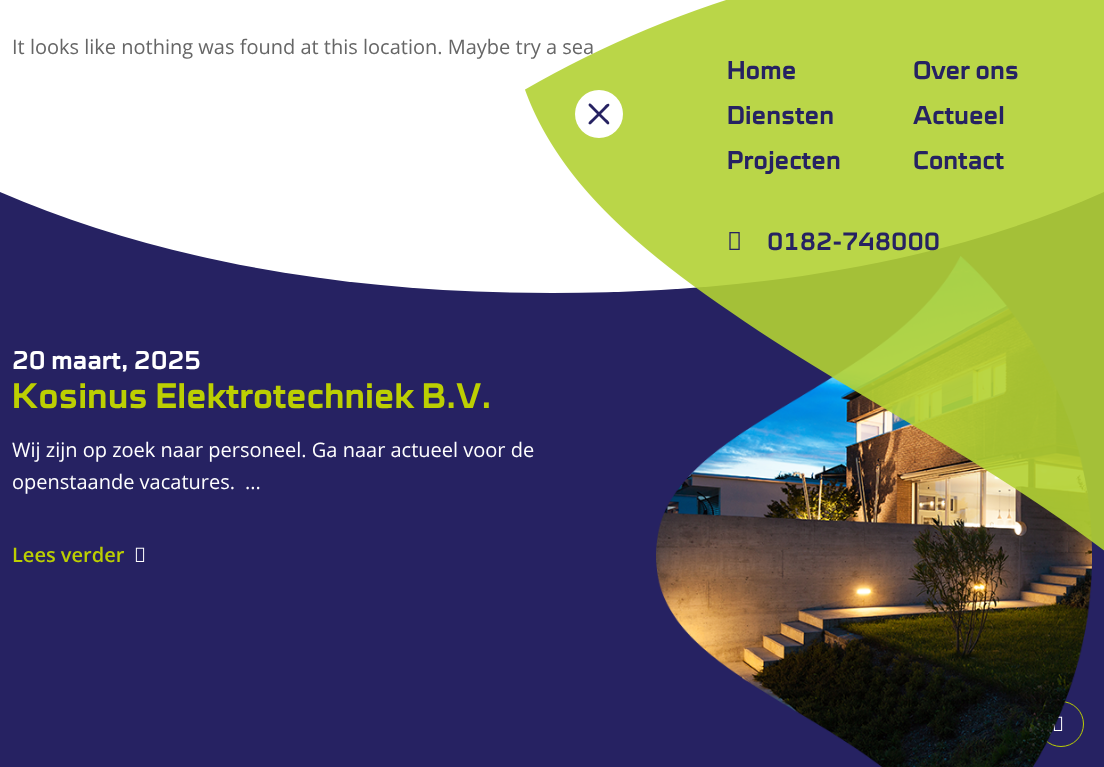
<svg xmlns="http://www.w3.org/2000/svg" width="1104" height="767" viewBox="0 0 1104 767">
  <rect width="100%" height="100%" fill="#ffffff"/>
  <text x="12" y="54" font-family="Open Sans" font-size="20" fill="#666666">It looks like nothing was found at this location. Maybe try a sea</text>
  <rect x="0" y="192" width="1104" height="575" fill="#262262"/>
  <path d="M0 192H1104C953 259 769 293 552 293C340 293 156 259 0 192" fill="#ffffff"/>
  <text x="12" y="457" font-family="Open Sans" font-size="20" fill="#ffffff">Wij zijn op zoek naar personeel. Ga naar actueel voor de</text>
  <circle cx="1061" cy="724" r="22.5" fill="none" stroke="#bccf02"/>
  <image x="1053" y="716" width="10" height="15" href="img3.png"/>
  <image x="656" y="256" width="436" height="511" href="img4.png"/>
  <image x="525" y="0" width="579" height="551" href="img1.png"/>
  <circle cx="599" cy="114" r="24" fill="#ffffff"/>
  <path d="M609 106L591 124L590 124.5C586.5 123.5 590 121 592 119L604 107C604.5 106.5 607 102.5 609 104C609.5 104.5 609.5 105.5 609 106Z" fill="#262262"/>
  <path d="M607 124L589 106L588.5 105C589.5 101.5 592 105 594 107L606 119C606.5 119.5 610.5 122 609 124C608.5 124.5 607.5 124.5 607 124Z" fill="#262262"/>
  <text x="727" y="79" font-family="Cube" font-size="26" font-weight="bold" fill="#262262">Home</text>
  <text x="913" y="79" font-family="Cube" font-size="26" font-weight="bold" fill="#262262">Over ons</text>
  <text x="727" y="124" font-family="Cube" font-size="26" font-weight="bold" fill="#262262">Diensten</text>
  <text x="913" y="124" font-family="Cube" font-size="26" font-weight="bold" fill="#262262">Actueel</text>
  <text x="727" y="169" font-family="Cube" font-size="26" font-weight="bold" fill="#262262">Projecten</text>
  <text x="913" y="169" font-family="Cube" font-size="26" font-weight="bold" fill="#262262">Contact</text>
  <image x="729" y="232" width="11" height="18" href="img2.png"/>
  <text x="767" y="250" font-family="Cube" font-size="25.25" font-weight="bold" fill="#262262">0182-748000</text>
  <text x="12" y="369" font-family="Cube" font-size="26" font-weight="bold" fill="#ffffff">20 maart, 2025</text>
  <text x="12" y="408" font-family="Cube" font-size="36" font-weight="bold" fill="#bccf02">Kosinus Elektrotechniek B.V.</text>
  <text x="12" y="489" font-family="Open Sans" font-size="20" fill="#ffffff">openstaande vacatures.</text>
  <text x="245" y="489" font-family="Open Sans" font-size="20" fill="#ffffff">...</text>
  <text x="12" y="562" font-family="Open Sans" font-size="20" font-weight="600" fill="#bccf02">Lees verder</text>
  <image x="135" y="547" width="10" height="15" href="img3.png"/>
</svg>
